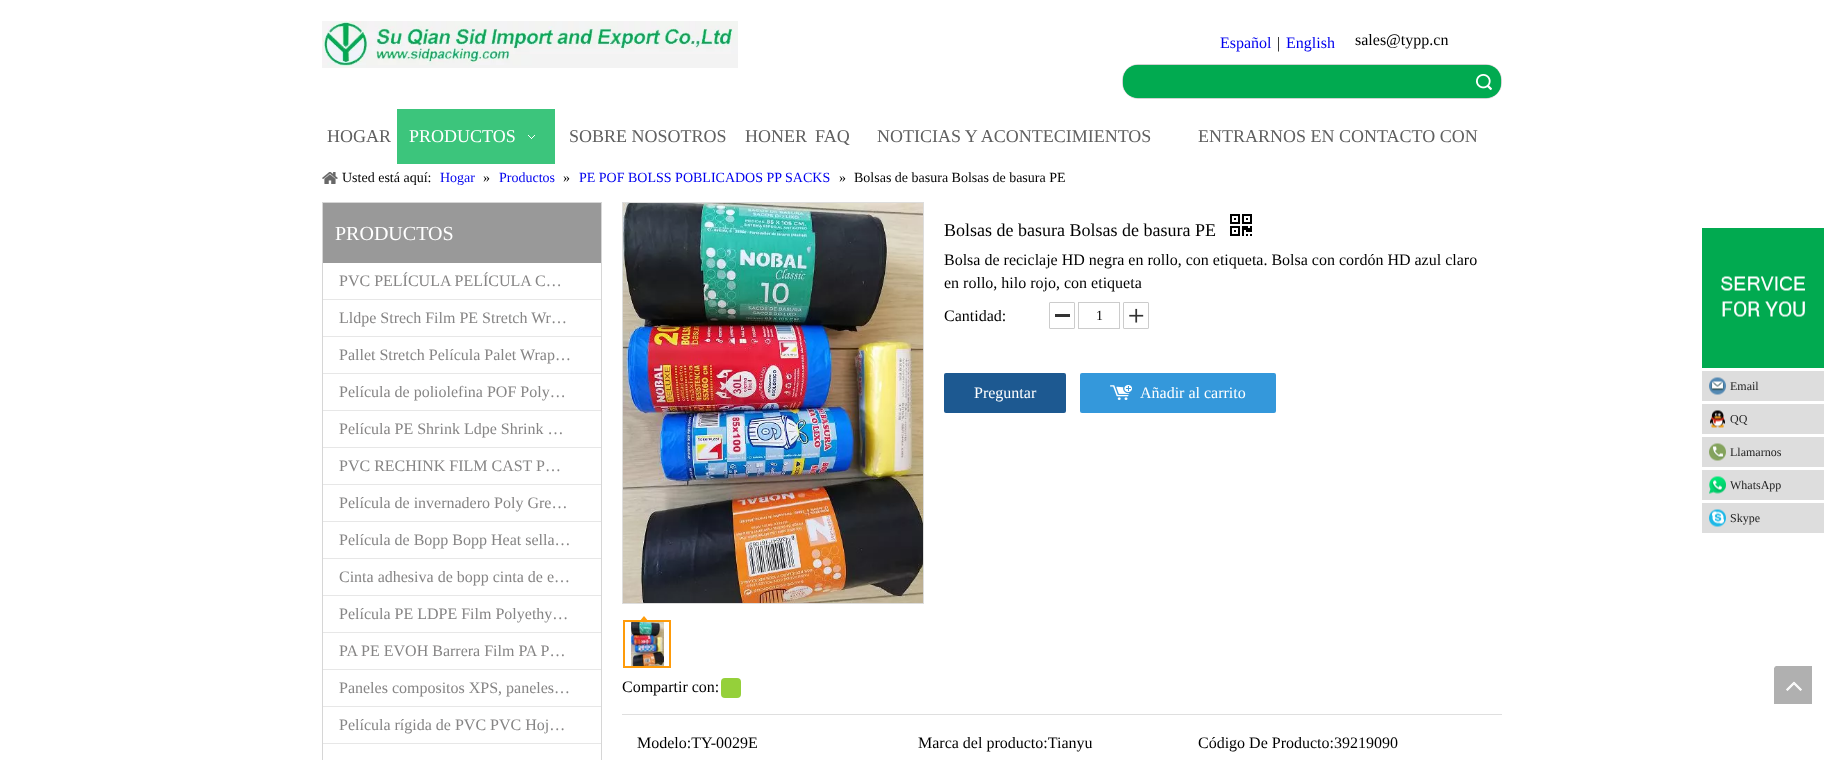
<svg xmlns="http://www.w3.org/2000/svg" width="1824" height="760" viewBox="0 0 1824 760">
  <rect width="100%" height="100%" fill="#ffffff"/>
  <image x="322" y="21" width="416" height="47" href="img1.png"/>
  <text x="1220" y="48" font-family="Liberation Serif" font-size="16" fill="#0000ee">Español</text>
  <text x="1277" y="48" font-family="Liberation Serif" font-size="16" fill="#000000">|</text>
  <text x="1286" y="48" font-family="Liberation Serif" font-size="16" fill="#0000ee">English</text>
  <text x="1355" y="45" font-family="Liberation Serif" font-size="16" fill="#000000">sales@typp.cn</text>
  <rect x="1122.5" y="64.5" width="379" height="34" rx="15.5" fill="none" stroke="#d1d1d1"/>
  <rect x="1123" y="65" width="378" height="33" rx="15" fill="#01aa50"/>
  <path d="M1138 65H1444V98H1138C1129.5 98 1123 91.5 1123 83V80C1123 71.5 1129.5 65 1138 65Z" fill="#01aa50"/>
  <path d="M1467 65H1486C1494.5 65 1501 71.5 1501 80V83C1501 91.5 1494.5 98 1486 98H1467Z" fill="#01aa50"/>
  <image x="1476" y="74" width="16" height="16" href="img2.png"/>
  <text x="327" y="142" font-family="Liberation Serif" font-size="18" fill="#606060">HOGAR</text>
  <rect x="397" y="109" width="158" height="55" fill="#3cc57c"/>
  <text x="409" y="142" font-family="Liberation Serif" font-size="18" fill="#ffffff">PRODUCTOS</text>
  <image x="528" y="135" width="7" height="4" href="img3.png"/>
  <text x="569" y="142" font-family="Liberation Serif" font-size="18" fill="#606060">SOBRE NOSOTROS</text>
  <text x="745" y="142" font-family="Liberation Serif" font-size="18" fill="#606060">HONER</text>
  <text x="815" y="142" font-family="Liberation Serif" font-size="18" fill="#606060">FAQ</text>
  <text x="877" y="142" font-family="Liberation Serif" font-size="18" fill="#606060">NOTICIAS Y ACONTECIMIENTOS</text>
  <text x="1198" y="142" font-family="Liberation Serif" font-size="18" fill="#606060">ENTRARNOS EN CONTACTO CON</text>
  <image x="322" y="172" width="16" height="12" href="img4.png"/>
  <text x="342" y="182" font-family="Liberation Serif" font-size="14" fill="#000000">Usted está aquí:</text>
  <text x="440" y="182" font-family="Liberation Serif" font-size="14" fill="#0000ee">Hogar</text>
  <text x="483" y="182" font-family="Liberation Serif" font-size="14" fill="#000000">»</text>
  <text x="499" y="182" font-family="Liberation Serif" font-size="14" fill="#0000ee">Productos</text>
  <text x="563" y="182" font-family="Liberation Serif" font-size="14" fill="#000000">»</text>
  <text x="579" y="182" font-family="Liberation Serif" font-size="14" fill="#0000ee">PE POF BOLSS POBLICADOS PP SACKS</text>
  <text x="839" y="182" font-family="Liberation Serif" font-size="14" fill="#000000">»</text>
  <text x="854" y="182" font-family="Liberation Serif" font-size="14" fill="#000000">Bolsas de basura Bolsas de basura PE</text>
  <rect x="322.5" y="202.5" width="279" height="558" fill="none" stroke="#d6d6d6"/>
  <rect x="323" y="203" width="278" height="60" fill="#999999"/>
  <text x="335" y="240" font-family="Liberation Serif" font-size="20" fill="#ffffff">PRODUCTOS</text>
  <text x="339" y="286" font-family="Liberation Serif" font-size="16" fill="#868585">PVC PELÍCULA PELÍCULA C…</text>
  <rect x="323" y="299" width="278" height="1" fill="#e7e7e7"/>
  <text x="339" y="323" font-family="Liberation Serif" font-size="16" fill="#868585">Lldpe Strech Film PE Stretch Wr…</text>
  <rect x="323" y="336" width="278" height="1" fill="#e7e7e7"/>
  <text x="339" y="360" font-family="Liberation Serif" font-size="16" fill="#868585">Pallet Stretch Película Palet Wrap…</text>
  <rect x="323" y="373" width="278" height="1" fill="#e7e7e7"/>
  <text x="339" y="397" font-family="Liberation Serif" font-size="16" fill="#868585">Película de poliolefina POF Poly…</text>
  <rect x="323" y="410" width="278" height="1" fill="#e7e7e7"/>
  <text x="339" y="434" font-family="Liberation Serif" font-size="16" fill="#868585">Película PE Shrink Ldpe Shrink …</text>
  <rect x="323" y="447" width="278" height="1" fill="#e7e7e7"/>
  <text x="339" y="471" font-family="Liberation Serif" font-size="16" fill="#868585">PVC RECHINK FILM CAST P…</text>
  <rect x="323" y="484" width="278" height="1" fill="#e7e7e7"/>
  <text x="339" y="508" font-family="Liberation Serif" font-size="16" fill="#868585">Película de invernadero Poly Gre…</text>
  <rect x="323" y="521" width="278" height="1" fill="#e7e7e7"/>
  <text x="339" y="545" font-family="Liberation Serif" font-size="16" fill="#868585">Película de Bopp Bopp Heat sella…</text>
  <rect x="323" y="558" width="278" height="1" fill="#e7e7e7"/>
  <text x="339" y="582" font-family="Liberation Serif" font-size="16" fill="#868585">Cinta adhesiva de bopp cinta de e…</text>
  <rect x="323" y="595" width="278" height="1" fill="#e7e7e7"/>
  <text x="339" y="619" font-family="Liberation Serif" font-size="16" fill="#868585">Película PE LDPE Film Polyethy…</text>
  <rect x="323" y="632" width="278" height="1" fill="#e7e7e7"/>
  <text x="339" y="656" font-family="Liberation Serif" font-size="16" fill="#868585">PA PE EVOH Barrera Film PA P…</text>
  <rect x="323" y="669" width="278" height="1" fill="#e7e7e7"/>
  <text x="339" y="693" font-family="Liberation Serif" font-size="16" fill="#868585">Paneles compositos XPS, paneles…</text>
  <rect x="323" y="706" width="278" height="1" fill="#e7e7e7"/>
  <text x="339" y="730" font-family="Liberation Serif" font-size="16" fill="#868585">Película rígida de PVC PVC Hoj…</text>
  <rect x="323" y="743" width="278" height="1" fill="#e7e7e7"/>
  <text x="944" y="236" font-family="Liberation Serif" font-size="18" fill="#000000">Bolsas de basura Bolsas de basura PE</text>
  <image x="1230" y="214" width="22" height="22" href="img5.png"/>
  <text x="944" y="265" font-family="Liberation Serif" font-size="16" fill="#000000">Bolsa de reciclaje HD negra en rollo, con etiqueta. Bolsa con cordón HD azul claro</text>
  <text x="944" y="288" font-family="Liberation Serif" font-size="16" fill="#000000">en rollo, hilo rojo, con etiqueta</text>
  <text x="944" y="321" font-family="Liberation Serif" font-size="16" fill="#000000">Cantidad:</text>
  <rect x="1055" y="314" width="15" height="3" fill="#333333"/>
  <rect x="1049.5" y="302.5" width="25" height="26" rx="0.5" fill="none" stroke="#cccccc"/>
  <rect x="1078.5" y="302.5" width="41" height="26" fill="none" stroke="#cccccc"/>
  <text x="1096" y="320" font-family="Liberation Serif" font-size="14" fill="#000000">1</text>
  <image x="1129" y="308" width="15" height="15" href="img6.png"/>
  <rect x="1123.5" y="302.5" width="25" height="26" rx="0.5" fill="none" stroke="#cccccc"/>
  <rect x="944" y="373" width="122" height="40" rx="2" fill="#1d5991"/>
  <text x="974" y="398" font-family="Liberation Serif" font-size="16" fill="#ffffff">Preguntar</text>
  <rect x="1080" y="373" width="196" height="40" rx="2" fill="#3498db"/>
  <image x="1110" y="385" width="22" height="15" href="img7.png"/>
  <text x="1140" y="398" font-family="Liberation Serif" font-size="16" fill="#ffffff">Añadir al carrito</text>
  <rect x="622.5" y="202.5" width="301" height="401" fill="none" stroke="#dddddd"/>
  <image x="623" y="203" width="300" height="400" href="img8.png"/>
  <rect x="624" y="621" width="46" height="46" fill="none" stroke="#fe9b0a" stroke-width="2"/>
  <path d="M649 622H639L644 616Z" fill="#fe9b0a"/>
  <image x="631" y="622" width="33" height="44" href="img9.png"/>
  <text x="622" y="692" font-family="Liberation Serif" font-size="16" fill="#000000">Compartir con:</text>
  <rect x="721" y="678" width="20" height="20" rx="4" fill="#95d03a"/>
  <rect x="622" y="714" width="880" height="1" fill="#dfdfdf"/>
  <text x="637" y="748" font-family="Liberation Serif" font-size="16" fill="#000000">Modelo:TY-0029E</text>
  <text x="918" y="748" font-family="Liberation Serif" font-size="16" fill="#000000">Marca del producto:Tianyu</text>
  <text x="1198" y="748" font-family="Liberation Serif" font-size="16" fill="#000000">Código De Producto:39219090</text>
  <rect x="1702" y="228" width="122" height="140" fill="#01aa50"/>
  <image x="1721" y="276" width="84" height="41" href="img10.png"/>
  <rect x="1702" y="371" width="122" height="30" fill="#dddddd"/>
  <image x="1709" y="377" width="17" height="18" href="img11.png"/>
  <text x="1730" y="390" font-family="Liberation Serif" font-size="12" fill="#222222">Email</text>
  <rect x="1702" y="404" width="122" height="30" fill="#dddddd"/>
  <image x="1710" y="410" width="15" height="18" href="img12.png"/>
  <text x="1730" y="423" font-family="Liberation Serif" font-size="12" fill="#222222">QQ</text>
  <rect x="1702" y="437" width="122" height="30" fill="#dddddd"/>
  <image x="1709" y="443" width="17" height="18" href="img13.png"/>
  <text x="1730" y="456" font-family="Liberation Serif" font-size="12" fill="#222222">Llamarnos</text>
  <rect x="1702" y="470" width="122" height="30" fill="#dddddd"/>
  <image x="1709" y="476" width="17" height="18" href="img14.png"/>
  <text x="1730" y="489" font-family="Liberation Serif" font-size="12" fill="#222222">WhatsApp</text>
  <rect x="1702" y="503" width="122" height="30" fill="#dddddd"/>
  <image x="1709" y="509" width="17" height="18" href="img15.png"/>
  <text x="1730" y="522" font-family="Liberation Serif" font-size="12" fill="#222222">Skype</text>
  <image x="1774" y="666" width="38" height="38" href="img16.png"/>
</svg>
